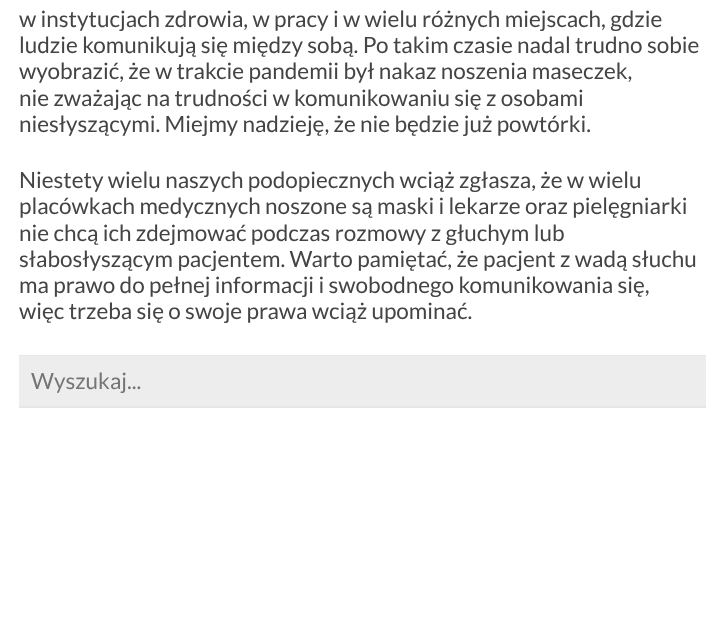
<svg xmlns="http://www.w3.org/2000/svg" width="725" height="631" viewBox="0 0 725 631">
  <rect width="100%" height="100%" fill="#ffffff"/>
  <text x="19" y="27" font-family="Lato" font-size="22.5" fill="#444444">w instytucjach zdrowia, w pracy i w wielu różnych miejscach, gdzie</text>
  <text x="19" y="53" font-family="Lato" font-size="22.5" fill="#444444">ludzie komunikują się między sobą. Po takim czasie nadal trudno sobie</text>
  <text x="19" y="79" font-family="Lato" font-size="22.5" fill="#444444">wyobrazić, że w trakcie pandemii był nakaz noszenia maseczek,</text>
  <text x="19" y="106" font-family="Lato" font-size="22.5" fill="#444444">nie zważając na trudności w komunikowaniu się z osobami</text>
  <text x="19" y="132" font-family="Lato" font-size="22.5" fill="#444444">niesłyszącymi. Miejmy nadzieję, że nie będzie już powtórki.</text>
  <text x="19" y="188" font-family="Lato" font-size="22.5" fill="#444444">Niestety wielu naszych podopiecznych wciąż zgłasza, że w wielu</text>
  <text x="19" y="214" font-family="Lato" font-size="22.5" fill="#444444">placówkach medycznych noszone są maski i lekarze oraz pielęgniarki</text>
  <text x="19" y="241" font-family="Lato" font-size="22.5" fill="#444444">nie chcą ich zdejmować podczas rozmowy z głuchym lub</text>
  <text x="19" y="267" font-family="Lato" font-size="22.5" fill="#444444">słabosłyszącym pacjentem. Warto pamiętać, że pacjent z wadą słuchu</text>
  <text x="19" y="293" font-family="Lato" font-size="22.5" fill="#444444">ma prawo do pełnej informacji i swobodnego komunikowania się,</text>
  <text x="19" y="319" font-family="Lato" font-size="22.5" fill="#444444">więc trzeba się o swoje prawa wciąż upominać.</text>
  <rect x="19" y="355" width="687" height="1" fill="#e6e6e6"/>
  <rect x="19" y="406" width="687" height="2" fill="#e6e6e6"/>
  <rect x="19" y="356" width="687" height="50" fill="#ededed"/>
  <text x="31" y="389" font-family="Lato" font-size="22.5" fill="#757575">Wyszukaj...</text>
</svg>
